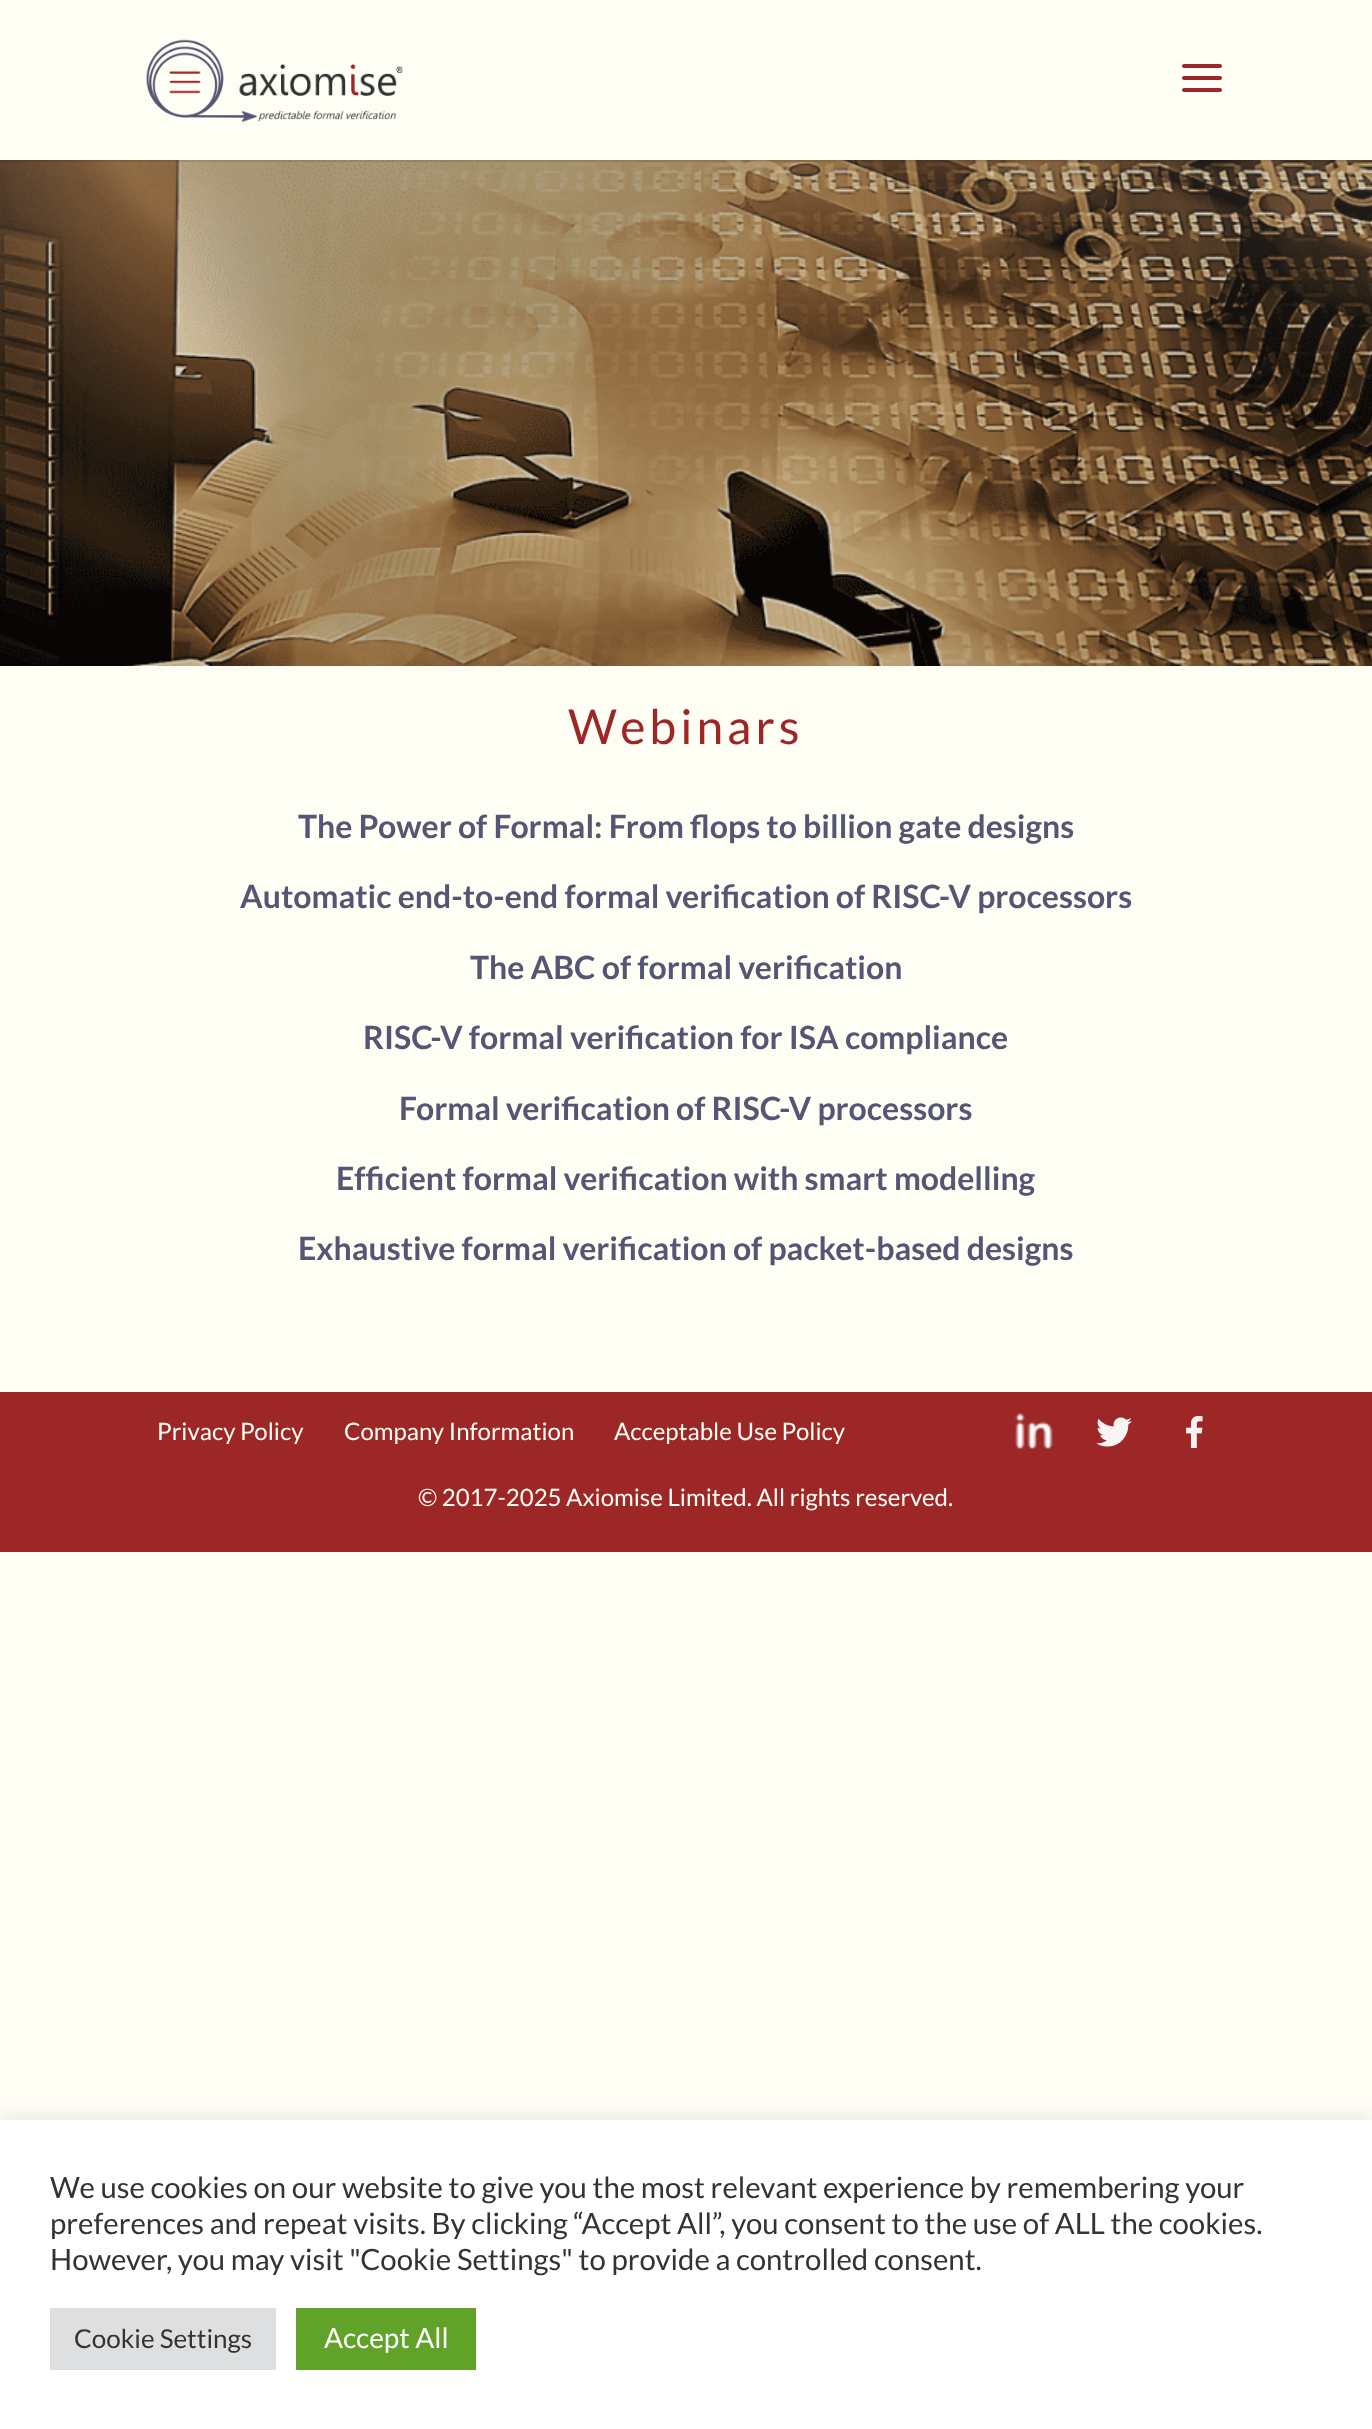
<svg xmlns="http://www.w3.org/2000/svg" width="1372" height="2429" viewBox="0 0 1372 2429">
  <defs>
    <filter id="blur1" x="-50%" y="-200%" width="200%" height="500%"><feGaussianBlur stdDeviation="10"/></filter>
  </defs>
  <rect width="100%" height="100%" fill="#fffef5"/>
  <image x="0" y="160" width="1372" height="506" href="img3.png"/>
  <rect x="0" y="160" width="1372" height="2" fill="#000000" fill-opacity="0.1"/>
  <image x="146" y="39" width="257" height="84" href="img1.png"/>
  <image x="1182" y="64" width="40" height="28" href="img2.png"/>
  <text x="568" y="744" font-family="Lato" font-size="48" letter-spacing="4" fill="#9d2626">Webinars</text>
  <text x="298" y="838" font-family="Lato" font-size="32" font-weight="bold" fill="#555574">The Power of Formal: From flops to billion gate designs</text>
  <text x="240" y="908" font-family="Lato" font-size="32" font-weight="bold" fill="#555574">Automatic end-to-end formal verification of RISC-V processors</text>
  <text x="470" y="979" font-family="Lato" font-size="32" font-weight="bold" fill="#555574">The ABC of formal verification</text>
  <text x="363" y="1049" font-family="Lato" font-size="32" font-weight="bold" fill="#555574">RISC-V formal verification for ISA compliance</text>
  <text x="399" y="1120" font-family="Lato" font-size="32" font-weight="bold" fill="#555574">Formal verification of RISC-V processors</text>
  <text x="336" y="1190" font-family="Lato" font-size="32" font-weight="bold" fill="#555574">Efficient formal verification with smart modelling</text>
  <text x="298" y="1260" font-family="Lato" font-size="32" font-weight="bold" fill="#555574">Exhaustive formal verification of packet-based designs</text>
  <rect x="0" y="1392" width="1372" height="160" fill="#9d2626"/>
  <text x="157" y="1440" font-family="Lato" font-size="24" fill="#fffef5">Privacy Policy</text>
  <text x="344" y="1440" font-family="Lato" font-size="24" fill="#fffef5">Company Information</text>
  <text x="614" y="1440" font-family="Lato" font-size="24" fill="#fffef5">Acceptable Use Policy</text>
  <image x="1015" y="1413" width="38" height="36" href="img4.png"/>
  <image x="1096" y="1417" width="36" height="30" href="img5.png"/>
  <image x="1186" y="1416" width="17" height="32" href="img6.png"/>
  <text x="418" y="1506" font-family="Lato" font-size="24" fill="#fffef5">© 2017-2025 Axiomise Limited. All rights reserved.</text>
  <rect x="0" y="2118" width="1372" height="310" fill="#acabab" fill-opacity="0.3" filter="url(#blur1)"/>
  <rect x="0" y="2120" width="1372" height="309" fill="#ffffff"/>
  <text x="50" y="2198" font-family="Lato" font-size="29.35" fill="#333333">We use cookies on our website to give you the most relevant experience by remembering your</text>
  <text x="50" y="2234" font-family="Lato" font-size="29.35" fill="#333333">preferences and repeat visits. By clicking “Accept All”, you consent to the use of ALL the cookies.</text>
  <text x="50" y="2270" font-family="Lato" font-size="29.35" fill="#333333">However, you may visit "Cookie Settings" to provide a controlled consent.</text>
  <rect x="50" y="2308" width="226" height="62" fill="#dedfe0"/>
  <text x="74" y="2348" font-family="Lato" font-size="26" fill="#333333">Cookie Settings</text>
  <rect x="296" y="2308" width="180" height="62" fill="#61a229"/>
  <text x="324" y="2348" font-family="Lato" font-size="28" fill="#ffffff">Accept All</text>
</svg>
